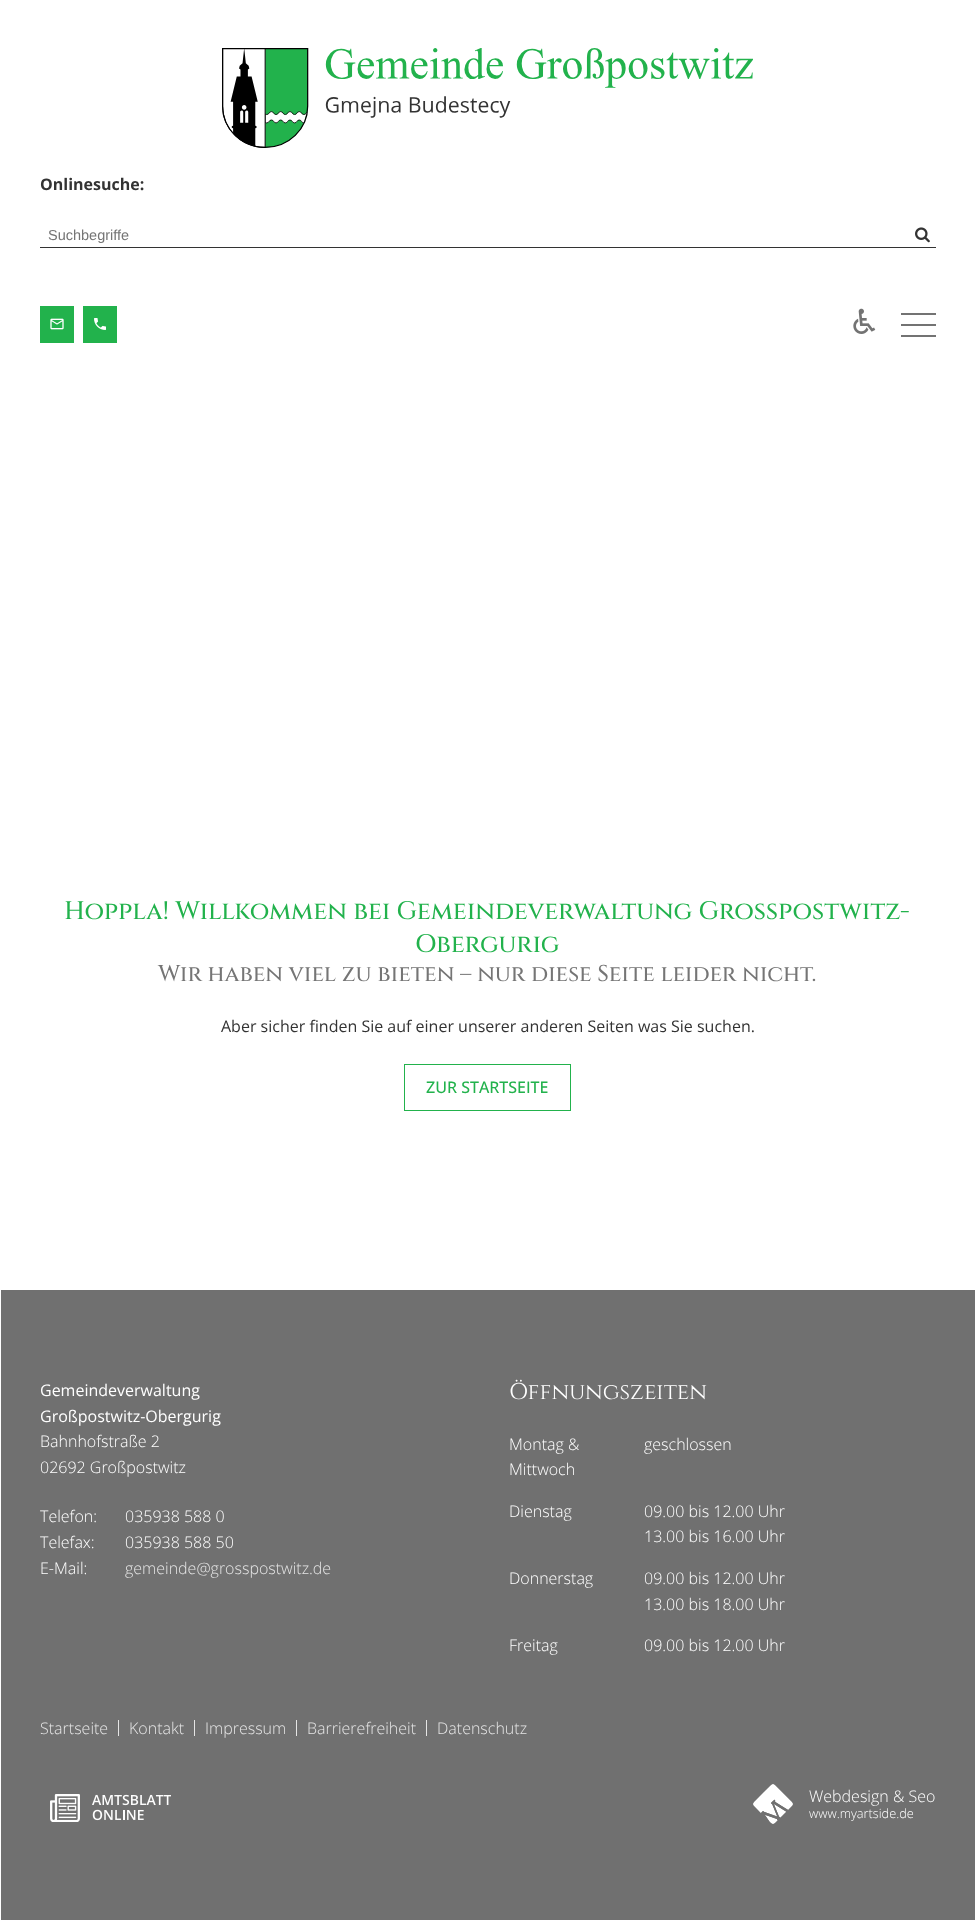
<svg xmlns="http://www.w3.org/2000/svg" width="975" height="1920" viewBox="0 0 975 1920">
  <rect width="100%" height="100%" fill="#ffffff"/>
  <image x="222" y="48" width="531" height="100" href="img1.png"/>
  <text x="40" y="190" font-family="Open Sans" font-size="16" font-weight="bold" fill="#333333">Onlinesuche:</text>
  <rect x="40" y="247" width="896" height="1" fill="#333333"/>
  <text x="48" y="240" font-family="Liberation Sans" font-size="14.5" fill="#757575">Suchbegriffe</text>
  <image x="915" y="227" width="15" height="16" href="img2.png"/>
  <rect x="40" y="306" width="34" height="37" fill="#22b24c"/>
  <image x="50" y="318" width="14" height="12" href="img3.png"/>
  <rect x="83" y="306" width="34" height="37" fill="#22b24c"/>
  <image x="94" y="318" width="12" height="12" href="img4.png"/>
  <image x="853" y="308" width="23" height="26" href="img5.png"/>
  <rect x="901" y="313" width="35" height="2" fill="#737373"/>
  <rect x="901" y="324" width="35" height="2" fill="#737373"/>
  <rect x="901" y="335" width="35" height="2" fill="#737373"/>
  <text x="64" y="919" font-family="Cinzel" font-size="25.3" font-weight="500" fill="#22b24c">Hoppla! Willkommen bei Gemeindeverwaltung Großpostwitz-</text>
  <text x="415" y="952" font-family="Cinzel" font-size="25.3" font-weight="500" fill="#22b24c">Obergurig</text>
  <text x="158" y="981" font-family="Cinzel" font-size="22.75" font-weight="500" fill="#757575">Wir haben viel zu bieten – nur diese Seite leider nicht.</text>
  <text x="221" y="1032" font-family="Open Sans" font-size="16" fill="#333333">Aber sicher finden Sie auf einer unserer anderen Seiten was Sie suchen.</text>
  <rect x="404.5" y="1064.5" width="166" height="46" fill="none" stroke="#22b24c"/>
  <text x="426" y="1093" font-family="Open Sans" font-size="16" font-weight="500" fill="#22b24c">ZUR STARTSEITE</text>
  <rect x="1" y="1290" width="974" height="630" fill="#707070"/>
  <text x="40" y="1396" font-family="Open Sans" font-size="16" fill="#ffffff">Gemeindeverwaltung</text>
  <text x="40" y="1422" font-family="Open Sans" font-size="16" fill="#ffffff">Großpostwitz-Obergurig</text>
  <text x="40" y="1447" font-family="Open Sans" font-size="16" font-weight="300" fill="#ffffff">Bahnhofstraße 2</text>
  <text x="40" y="1473" font-family="Open Sans" font-size="16" font-weight="300" fill="#ffffff">02692 Großpostwitz</text>
  <text x="40" y="1522" font-family="Open Sans" font-size="16" font-weight="300" fill="#ffffff">Telefon:</text>
  <text x="125" y="1522" font-family="Open Sans" font-size="16" font-weight="300" fill="#ffffff">035938 588 0</text>
  <text x="40" y="1548" font-family="Open Sans" font-size="16" font-weight="300" fill="#ffffff">Telefax:</text>
  <text x="125" y="1548" font-family="Open Sans" font-size="16" font-weight="300" fill="#ffffff">035938 588 50</text>
  <text x="40" y="1574" font-family="Open Sans" font-size="16" font-weight="300" fill="#ffffff">E-Mail:</text>
  <text x="125" y="1574" font-family="Open Sans" font-size="16" font-weight="300" fill="#e5e5e5">gemeinde@grosspostwitz.de</text>
  <text x="509" y="1399" font-family="Cinzel" font-size="22.75" fill="#ffffff">Öffnungszeiten</text>
  <text x="509" y="1450" font-family="Open Sans" font-size="16" font-weight="300" fill="#ffffff">Montag &amp;</text>
  <text x="509" y="1475" font-family="Open Sans" font-size="16" font-weight="300" fill="#ffffff">Mittwoch</text>
  <text x="644" y="1450" font-family="Open Sans" font-size="16" font-weight="300" fill="#ffffff">geschlossen</text>
  <text x="509" y="1517" font-family="Open Sans" font-size="16" font-weight="300" fill="#ffffff">Dienstag</text>
  <text x="644" y="1517" font-family="Open Sans" font-size="16" font-weight="300" fill="#ffffff">09.00 bis 12.00 Uhr</text>
  <text x="644" y="1542" font-family="Open Sans" font-size="16" font-weight="300" fill="#ffffff">13.00 bis 16.00 Uhr</text>
  <text x="509" y="1584" font-family="Open Sans" font-size="16" font-weight="300" fill="#ffffff">Donnerstag</text>
  <text x="644" y="1584" font-family="Open Sans" font-size="16" font-weight="300" fill="#ffffff">09.00 bis 12.00 Uhr</text>
  <text x="644" y="1610" font-family="Open Sans" font-size="16" font-weight="300" fill="#ffffff">13.00 bis 18.00 Uhr</text>
  <text x="509" y="1651" font-family="Open Sans" font-size="16" font-weight="300" fill="#ffffff">Freitag</text>
  <text x="644" y="1651" font-family="Open Sans" font-size="16" font-weight="300" fill="#ffffff">09.00 bis 12.00 Uhr</text>
  <rect x="118" y="1720" width="1" height="16" fill="#e5e5e5"/>
  <text x="40" y="1734" font-family="Open Sans" font-size="16" font-weight="300" fill="#e5e5e5">Startseite</text>
  <rect x="194" y="1720" width="1" height="16" fill="#e5e5e5"/>
  <text x="129" y="1734" font-family="Open Sans" font-size="16" font-weight="300" fill="#e5e5e5">Kontakt</text>
  <rect x="296" y="1720" width="1" height="16" fill="#e5e5e5"/>
  <text x="205" y="1734" font-family="Open Sans" font-size="16" font-weight="300" fill="#e5e5e5">Impressum</text>
  <rect x="426" y="1720" width="1" height="16" fill="#e5e5e5"/>
  <text x="307" y="1734" font-family="Open Sans" font-size="16" font-weight="300" fill="#e5e5e5">Barrierefreiheit</text>
  <text x="437" y="1734" font-family="Open Sans" font-size="16" font-weight="300" fill="#e5e5e5">Datenschutz</text>
  <image x="50" y="1794" width="121" height="28" href="img6.png"/>
  <image x="753" y="1784" width="40" height="40" href="img7.png"/>
  <text x="809" y="1802" font-family="Open Sans" font-size="16" font-weight="300" fill="#ffffff">Webdesign &amp; Seo</text>
  <text x="809" y="1818" font-family="Open Sans" font-size="12.75" font-weight="300" fill="#ffffff">www.myartside.de</text>
</svg>
